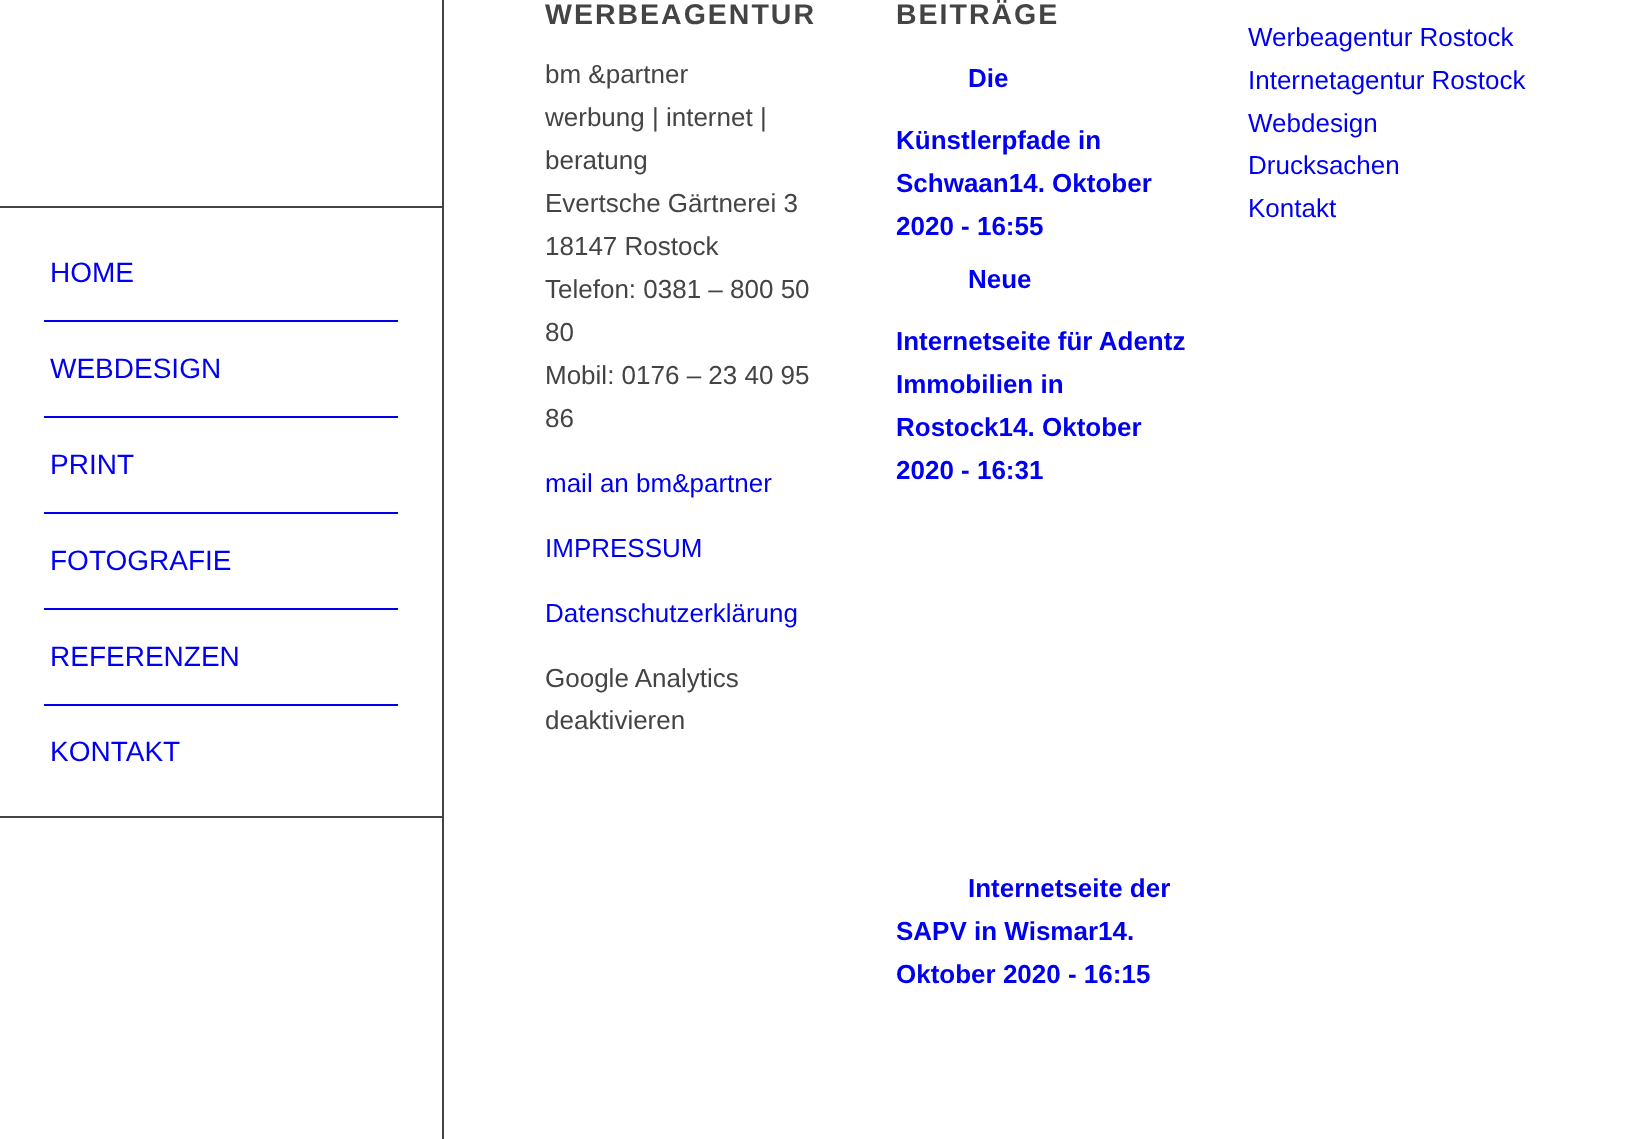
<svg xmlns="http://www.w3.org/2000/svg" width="1640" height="1139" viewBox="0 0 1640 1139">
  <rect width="100%" height="100%" fill="#ffffff"/>
  <rect x="0" y="816" width="442" height="2" fill="#444444"/>
  <rect x="0" y="206" width="442" height="2" fill="#444444"/>
  <rect x="44" y="320" width="354" height="2" fill="#0000ee"/>
  <text x="50" y="282" font-family="Liberation Sans" font-size="28" fill="#0000ee">HOME</text>
  <rect x="44" y="416" width="354" height="2" fill="#0000ee"/>
  <text x="50" y="378" font-family="Liberation Sans" font-size="28" fill="#0000ee">WEBDESIGN</text>
  <rect x="44" y="512" width="354" height="2" fill="#0000ee"/>
  <text x="50" y="474" font-family="Liberation Sans" font-size="28" fill="#0000ee">PRINT</text>
  <rect x="44" y="608" width="354" height="2" fill="#0000ee"/>
  <text x="50" y="570" font-family="Liberation Sans" font-size="28" fill="#0000ee">FOTOGRAFIE</text>
  <rect x="44" y="704" width="354" height="2" fill="#0000ee"/>
  <text x="50" y="666" font-family="Liberation Sans" font-size="28" fill="#0000ee">REFERENZEN</text>
  <text x="50" y="761" font-family="Liberation Sans" font-size="28" fill="#0000ee">KONTAKT</text>
  <rect x="442" y="0" width="2" height="1139" fill="#444444"/>
  <text x="545" y="24" font-family="Liberation Sans" font-size="28.5" font-weight="bold" letter-spacing="2" fill="#444444">WERBEAGENTUR</text>
  <text x="545" y="83" font-family="Liberation Sans" font-size="26" fill="#444444">bm &amp;partner</text>
  <text x="545" y="126" font-family="Liberation Sans" font-size="26" fill="#444444">werbung | internet |</text>
  <text x="545" y="169" font-family="Liberation Sans" font-size="26" fill="#444444">beratung</text>
  <text x="545" y="212" font-family="Liberation Sans" font-size="26" fill="#444444">Evertsche Gärtnerei 3</text>
  <text x="545" y="255" font-family="Liberation Sans" font-size="26" fill="#444444">18147 Rostock</text>
  <text x="545" y="298" font-family="Liberation Sans" font-size="26" fill="#444444">Telefon: 0381 – 800 50</text>
  <text x="545" y="341" font-family="Liberation Sans" font-size="26" fill="#444444">80</text>
  <text x="545" y="384" font-family="Liberation Sans" font-size="26" fill="#444444">Mobil: 0176 – 23 40 95</text>
  <text x="545" y="427" font-family="Liberation Sans" font-size="26" fill="#444444">86</text>
  <text x="545" y="492" font-family="Liberation Sans" font-size="26" fill="#0000ee">mail an bm&amp;partner</text>
  <text x="545" y="557" font-family="Liberation Sans" font-size="26" fill="#0000ee">IMPRESSUM</text>
  <text x="545" y="622" font-family="Liberation Sans" font-size="26" fill="#0000ee">Datenschutzerklärung</text>
  <text x="545" y="687" font-family="Liberation Sans" font-size="26" fill="#444444">Google Analytics</text>
  <text x="545" y="729" font-family="Liberation Sans" font-size="26" fill="#444444">deaktivieren</text>
  <text x="896" y="24" font-family="Liberation Sans" font-size="28.5" font-weight="bold" letter-spacing="2" fill="#444444">BEITRÄGE</text>
  <text x="968" y="87" font-family="Liberation Sans" font-size="26" font-weight="bold" fill="#0000ee">Die</text>
  <text x="896" y="149" font-family="Liberation Sans" font-size="26" font-weight="bold" fill="#0000ee">Künstlerpfade in</text>
  <text x="896" y="192" font-family="Liberation Sans" font-size="26" font-weight="bold" fill="#0000ee">Schwaan14. Oktober</text>
  <text x="896" y="235" font-family="Liberation Sans" font-size="26" font-weight="bold" fill="#0000ee">2020 - 16:55</text>
  <text x="968" y="288" font-family="Liberation Sans" font-size="26" font-weight="bold" fill="#0000ee">Neue</text>
  <text x="896" y="350" font-family="Liberation Sans" font-size="26" font-weight="bold" fill="#0000ee">Internetseite für Adentz</text>
  <text x="896" y="393" font-family="Liberation Sans" font-size="26" font-weight="bold" fill="#0000ee">Immobilien in</text>
  <text x="896" y="436" font-family="Liberation Sans" font-size="26" font-weight="bold" fill="#0000ee">Rostock14. Oktober</text>
  <text x="896" y="479" font-family="Liberation Sans" font-size="26" font-weight="bold" fill="#0000ee">2020 - 16:31</text>
  <text x="968" y="897" font-family="Liberation Sans" font-size="26" font-weight="bold" fill="#0000ee">Internetseite der</text>
  <text x="896" y="940" font-family="Liberation Sans" font-size="26" font-weight="bold" fill="#0000ee">SAPV in Wismar14.</text>
  <text x="896" y="983" font-family="Liberation Sans" font-size="26" font-weight="bold" fill="#0000ee">Oktober 2020 - 16:15</text>
  <text x="1248" y="46" font-family="Liberation Sans" font-size="26" fill="#0000ee">Werbeagentur Rostock</text>
  <text x="1248" y="89" font-family="Liberation Sans" font-size="26" fill="#0000ee">Internetagentur Rostock</text>
  <text x="1248" y="132" font-family="Liberation Sans" font-size="26" fill="#0000ee">Webdesign</text>
  <text x="1248" y="174" font-family="Liberation Sans" font-size="26" fill="#0000ee">Drucksachen</text>
  <text x="1248" y="217" font-family="Liberation Sans" font-size="26" fill="#0000ee">Kontakt</text>
</svg>
